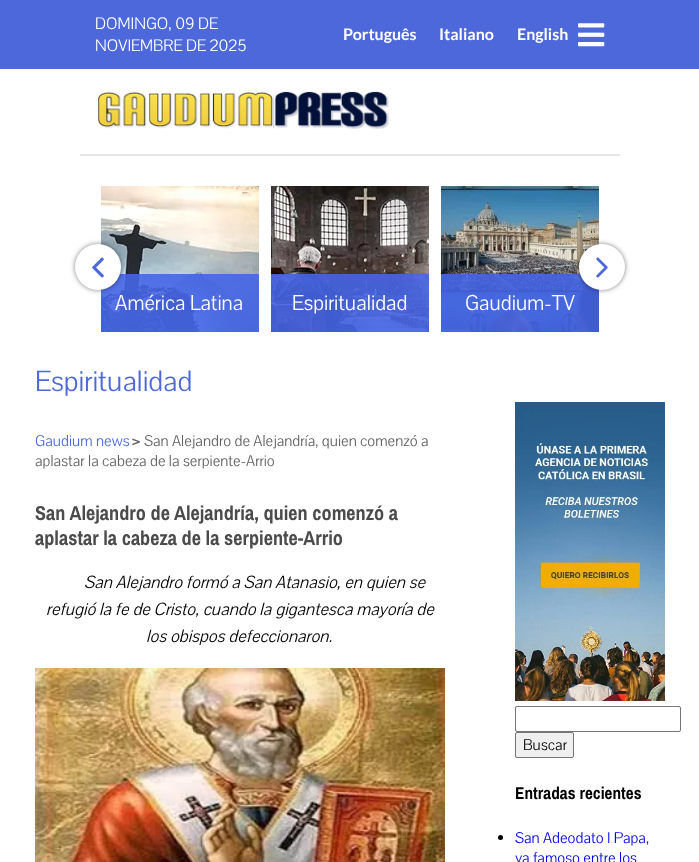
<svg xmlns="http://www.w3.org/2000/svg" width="699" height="862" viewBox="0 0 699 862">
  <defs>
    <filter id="blur1" x="-50%" y="-200%" width="200%" height="500%"><feGaussianBlur stdDeviation="2.5"/></filter>
  </defs>
  <rect width="100%" height="100%" fill="#ffffff"/>
  <rect x="0" y="0" width="699" height="69" fill="#4d68db"/>
  <text x="95" y="29" font-family="Pavanam" font-size="17" fill="#ffffff">DOMINGO, 09 DE</text>
  <text x="95" y="51" font-family="Pavanam" font-size="17" fill="#ffffff">NOVIEMBRE DE 2025</text>
  <text x="343" y="40" font-family="Lato" font-size="16" font-weight="bold" fill="#ffffff">Português</text>
  <text x="439" y="40" font-family="Lato" font-size="16" font-weight="bold" fill="#ffffff">Italiano</text>
  <text x="517" y="40" font-family="Lato" font-size="16" font-weight="bold" fill="#ffffff">English</text>
  <image x="578" y="23" width="27" height="24" href="img1.png"/>
  <rect x="80" y="154" width="540" height="2" fill="#e6e6e6"/>
  <image x="98" y="91" width="291" height="38" href="img2.png"/>
  <image x="101" y="186" width="158" height="146" href="img5.png"/>
  <rect x="101" y="274" width="158" height="58" fill="#4565e6" fill-opacity="0.9"/>
  <rect x="75" y="244" width="46" height="46" rx="23" fill="#000000" fill-opacity="0.5" filter="url(#blur1)"/>
  <circle cx="98" cy="267" r="23" fill="#ffffff"/>
  <image x="92" y="257" width="12" height="21" href="img3.png"/>
  <image x="441" y="186" width="158" height="146" href="img7.png"/>
  <rect x="441" y="274" width="158" height="58" fill="#4565e6" fill-opacity="0.9"/>
  <rect x="579" y="244" width="46" height="46" rx="23" fill="#000000" fill-opacity="0.5" filter="url(#blur1)"/>
  <circle cx="602" cy="267" r="23" fill="#ffffff"/>
  <image x="596" y="257" width="12" height="21" href="img4.png"/>
  <text x="115" y="310" font-family="Pavanam" font-size="22" fill="#ffffff">América Latina</text>
  <image x="271" y="186" width="158" height="146" href="img6.png"/>
  <rect x="271" y="274" width="158" height="58" fill="#4565e6" fill-opacity="0.9"/>
  <text x="292" y="310" font-family="Pavanam" font-size="22" fill="#ffffff">Espiritualidad</text>
  <text x="465" y="310" font-family="Pavanam" font-size="22" fill="#ffffff">Gaudium-TV</text>
  <text x="35" y="391" font-family="Pavanam" font-size="30" fill="#4d68db">Espiritualidad</text>
  <text x="35" y="446" font-family="Pavanam" font-size="16" fill="#4d68db">Gaudium news</text>
  <text x="132" y="446" font-family="Pavanam" font-size="16" font-weight="bold" fill="#626262">&gt;</text>
  <text x="144" y="446" font-family="Pavanam" font-size="16" fill="#626262">San Alejandro de Alejandría, quien comenzó a</text>
  <text x="35" y="466" font-family="Pavanam" font-size="16" fill="#626262">aplastar la cabeza de la serpiente-Arrio</text>
  <text x="35" y="520" font-family="Pragati Narrow" font-size="22" font-weight="bold" fill="#4b4b4b">San Alejandro de Alejandría, quien comenzó a</text>
  <text x="35" y="545" font-family="Pragati Narrow" font-size="22" font-weight="bold" fill="#4b4b4b">aplastar la cabeza de la serpiente-Arrio</text>
  <text x="84" y="588" font-family="Pavanam" font-size="18" font-style="italic" fill="#000000">San Alejandro formó a San Atanasio, en quien se</text>
  <text x="46" y="615" font-family="Pavanam" font-size="18" font-style="italic" fill="#000000">refugió la fe de Cristo, cuando la gigantesca mayoría de</text>
  <text x="146" y="642" font-family="Pavanam" font-size="18" font-style="italic" fill="#000000">los obispos defeccionaron.</text>
  <image x="35" y="668" width="410" height="194" href="img8.png"/>
  <image x="515" y="402" width="150" height="299" href="img9.png"/>
  <rect x="515.5" y="706.5" width="165" height="25" rx="1.5" fill="none" stroke="#767676"/>
  <rect x="515.5" y="732.5" width="58" height="25" rx="1.5" fill="#efefef" stroke="#767676"/>
  <text x="523" y="750" font-family="Pavanam" font-size="16" fill="#000000">Buscar</text>
  <text x="515" y="799" font-family="Pragati Narrow" font-size="18.75" font-weight="bold" fill="#000000">Entradas recientes</text>
  <circle cx="500.5" cy="837.5" r="2.5" fill="#000000"/>
  <text x="515" y="843" font-family="Pavanam" font-size="16" fill="#0000ee">San Adeodato I Papa,</text>
  <text x="515" y="863" font-family="Pavanam" font-size="16" fill="#0000ee">ya famoso entre los</text>
</svg>
